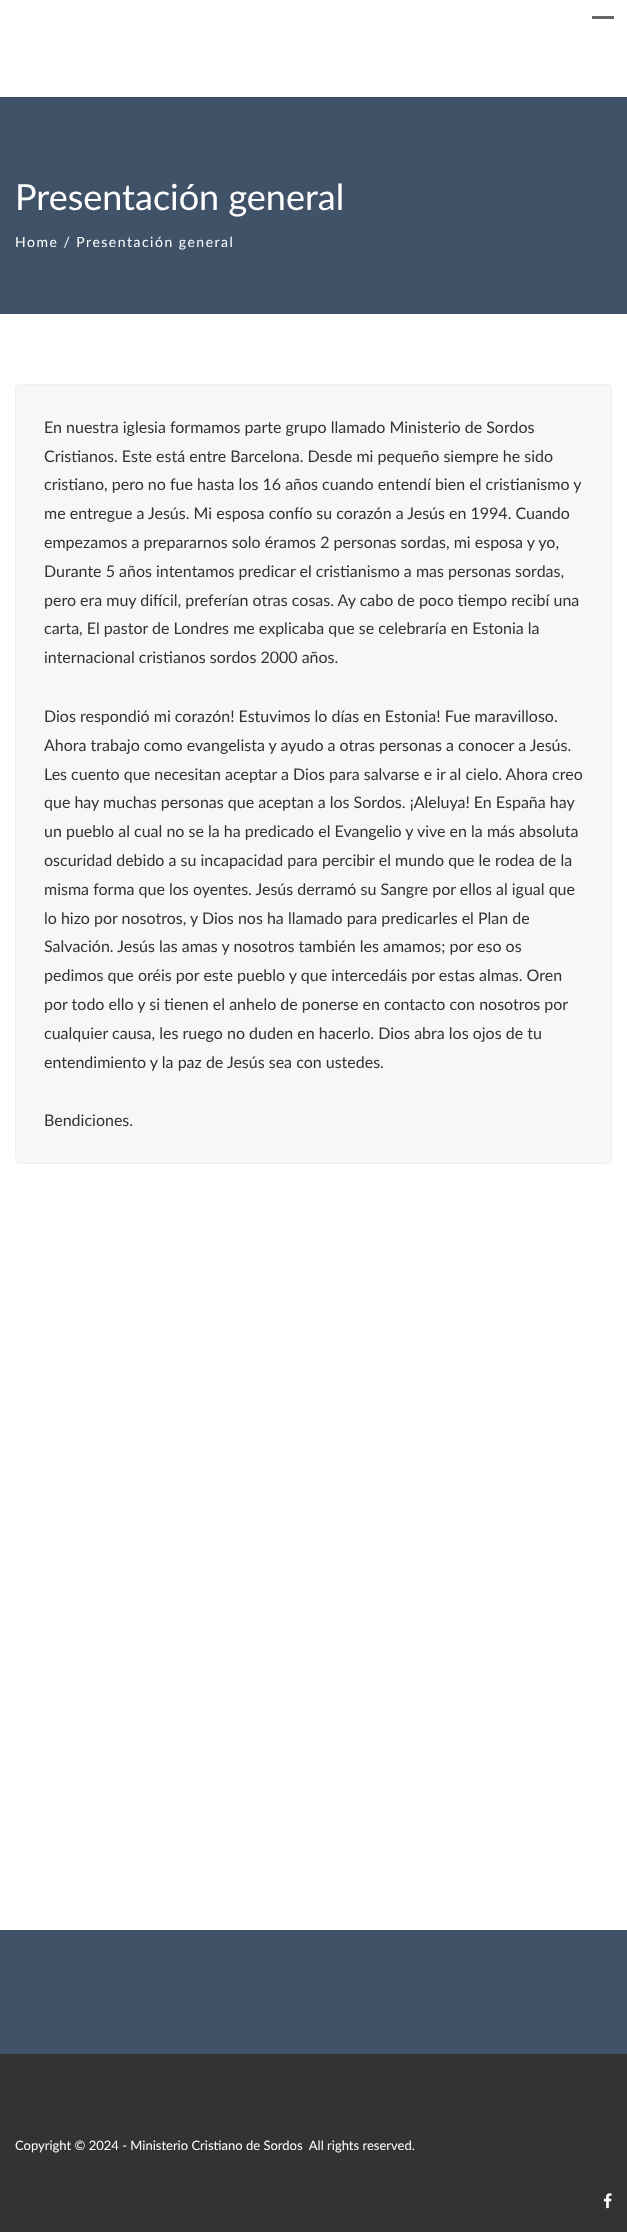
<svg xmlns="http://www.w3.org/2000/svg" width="627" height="2232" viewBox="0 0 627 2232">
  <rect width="100%" height="100%" fill="#ffffff"/>
  <rect x="592" y="16" width="22" height="3" fill="#666666"/>
  <rect x="0" y="97" width="627" height="217" fill="#3f5267"/>
  <text x="15" y="210" font-family="Lato" font-size="36" fill="#ffffff">Presentación general</text>
  <text x="15" y="247" font-family="Lato" font-size="14" letter-spacing="1.5" fill="#ffffff">Home / Presentación general</text>
  <rect x="15.5" y="384.5" width="596" height="779" rx="4.5" fill="#f7f7f7" stroke="#f0f0f0"/>
  <text x="44" y="433" font-family="Lato" font-size="16" fill="#333333">En nuestra iglesia formamos parte grupo llamado Ministerio de Sordos</text>
  <text x="44" y="462" font-family="Lato" font-size="16" fill="#333333">Cristianos. Este está entre Barcelona. Desde mi pequeño siempre he sido</text>
  <text x="44" y="490" font-family="Lato" font-size="16" fill="#333333">cristiano, pero no fue hasta los 16 años cuando entendí bien el cristianismo y</text>
  <text x="44" y="519" font-family="Lato" font-size="16" fill="#333333">me entregue a Jesús. Mi esposa confío su corazón a Jesús en 1994. Cuando</text>
  <text x="44" y="548" font-family="Lato" font-size="16" fill="#333333">empezamos a prepararnos solo éramos 2 personas sordas, mi esposa y yo,</text>
  <text x="44" y="577" font-family="Lato" font-size="16" fill="#333333">Durante 5 años intentamos predicar el cristianismo a mas personas sordas,</text>
  <text x="44" y="606" font-family="Lato" font-size="16" fill="#333333">pero era muy difícil, preferían otras cosas. Ay cabo de poco tiempo recibí una</text>
  <text x="44" y="634" font-family="Lato" font-size="16" fill="#333333">carta, El pastor de Londres me explicaba que se celebraría en Estonia la</text>
  <text x="44" y="663" font-family="Lato" font-size="16" fill="#333333">internacional cristianos sordos 2000 años.</text>
  <text x="44" y="722" font-family="Lato" font-size="16" fill="#333333">Dios respondió mi corazón! Estuvimos lo días en Estonia! Fue maravilloso.</text>
  <text x="44" y="751" font-family="Lato" font-size="16" fill="#333333">Ahora trabajo como evangelista y ayudo a otras personas a conocer a Jesús.</text>
  <text x="44" y="780" font-family="Lato" font-size="16" fill="#333333">Les cuento que necesitan aceptar a Dios para salvarse e ir al cielo. Ahora creo</text>
  <text x="44" y="808" font-family="Lato" font-size="16" fill="#333333">que hay muchas personas que aceptan a los Sordos. ¡Aleluya! En España hay</text>
  <text x="44" y="837" font-family="Lato" font-size="16" fill="#333333">un pueblo al cual no se la ha predicado el Evangelio y vive en la más absoluta</text>
  <text x="44" y="866" font-family="Lato" font-size="16" fill="#333333">oscuridad debido a su incapacidad para percibir el mundo que le rodea de la</text>
  <text x="44" y="895" font-family="Lato" font-size="16" fill="#333333">misma forma que los oyentes. Jesús derramó su Sangre por ellos al igual que</text>
  <text x="44" y="924" font-family="Lato" font-size="16" fill="#333333">lo hizo por nosotros, y Dios nos ha llamado para predicarles el Plan de</text>
  <text x="44" y="952" font-family="Lato" font-size="16" fill="#333333">Salvación. Jesús las amas y nosotros también les amamos; por eso os</text>
  <text x="44" y="981" font-family="Lato" font-size="16" fill="#333333">pedimos que oréis por este pueblo y que intercedáis por estas almas. Oren</text>
  <text x="44" y="1010" font-family="Lato" font-size="16" fill="#333333">por todo ello y si tienen el anhelo de ponerse en contacto con nosotros por</text>
  <text x="44" y="1039" font-family="Lato" font-size="16" fill="#333333">cualquier causa, les ruego no duden en hacerlo. Dios abra los ojos de tu</text>
  <text x="44" y="1068" font-family="Lato" font-size="16" fill="#333333">entendimiento y la paz de Jesús sea con ustedes.</text>
  <text x="44" y="1126" font-family="Lato" font-size="16" fill="#333333">Bendiciones.</text>
  <rect x="0" y="1930" width="627" height="124" fill="#3f5267"/>
  <rect x="0" y="2054" width="627" height="178" fill="#333333"/>
  <text x="15" y="2150" font-family="Lato" font-size="13" fill="#ffffff" xml:space="preserve">Copyright © 2024 - Ministerio Cristiano de Sordos  All rights reserved.</text>
  <image x="603" y="2193" width="9" height="16" href="img1.png"/>
</svg>
